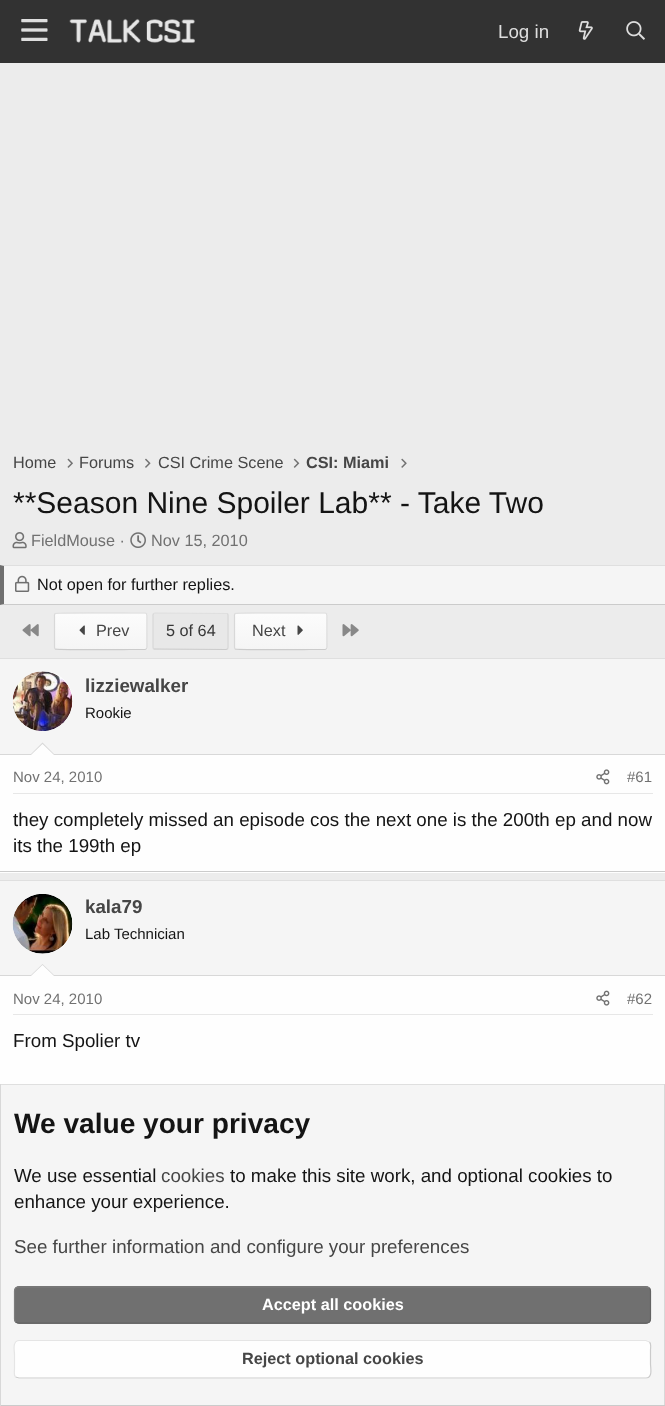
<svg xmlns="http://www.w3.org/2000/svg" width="665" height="1406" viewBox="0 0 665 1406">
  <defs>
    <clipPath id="clip1"><rect x="54" y="613" width="94" height="37" rx="2.5"/></clipPath>
    <linearGradient id="g1" gradientUnits="userSpaceOnUse" x1="101" y1="614" x2="101" y2="579"><stop offset="0" stop-color="#f5f5f5"/><stop offset="1" stop-color="#fcfcfc"/></linearGradient>
    <linearGradient id="g2" gradientUnits="userSpaceOnUse" x1="101" y1="649" x2="101" y2="614"><stop offset="0" stop-color="#f5f5f5"/><stop offset="1" stop-color="#fcfcfc"/></linearGradient>
    <linearGradient id="g3" gradientUnits="userSpaceOnUse" x1="101" y1="684" x2="101" y2="649"><stop offset="0" stop-color="#f5f5f5"/><stop offset="1" stop-color="#fcfcfc"/></linearGradient>
    <clipPath id="clip2"><rect x="234" y="613" width="94" height="37" rx="2.5"/></clipPath>
    <linearGradient id="g4" gradientUnits="userSpaceOnUse" x1="281" y1="614" x2="281" y2="579"><stop offset="0" stop-color="#f5f5f5"/><stop offset="1" stop-color="#fcfcfc"/></linearGradient>
    <linearGradient id="g5" gradientUnits="userSpaceOnUse" x1="281" y1="649" x2="281" y2="614"><stop offset="0" stop-color="#f5f5f5"/><stop offset="1" stop-color="#fcfcfc"/></linearGradient>
    <linearGradient id="g6" gradientUnits="userSpaceOnUse" x1="281" y1="684" x2="281" y2="649"><stop offset="0" stop-color="#f5f5f5"/><stop offset="1" stop-color="#fcfcfc"/></linearGradient>
  </defs>
  <rect width="100%" height="100%" fill="#ececec"/>
  <rect x="0" y="0" width="665" height="63" fill="#323232"/>
  <image x="21" y="19" width="27" height="22" href="img1.png"/>
  <image x="69" y="18" width="126" height="25" href="img2.png"/>
  <text x="498" y="38" font-family="Liberation Sans" font-size="18.75" fill="#dedede">Log in</text>
  <image x="578" y="21" width="15" height="19" href="img3.png"/>
  <image x="626" y="21" width="19" height="19" href="img4.png"/>
  <text x="13" y="468" font-family="Liberation Sans" font-size="16.25" fill="#464646">Home</text>
  <image x="67" y="458" width="6" height="10" href="img5.png"/>
  <text x="79" y="468" font-family="Liberation Sans" font-size="16.25" fill="#464646">Forums</text>
  <image x="145" y="458" width="6" height="10" href="img6.png"/>
  <text x="158" y="468" font-family="Liberation Sans" font-size="16.25" fill="#464646">CSI Crime Scene</text>
  <image x="293" y="458" width="7" height="10" href="img7.png"/>
  <text x="306" y="468" font-family="Liberation Sans" font-size="16.25" font-weight="bold" fill="#464646">CSI: Miami</text>
  <image x="401" y="458" width="6" height="10" href="img8.png"/>
  <text x="13" y="513" font-family="Liberation Sans" font-size="30" fill="#141414">**Season Nine Spoiler Lab** - Take Two</text>
  <image x="12" y="532" width="15" height="17" href="img9.png"/>
  <text x="31" y="546" font-family="Liberation Sans" font-size="16.25" fill="#717171">FieldMouse ·</text>
  <image x="130" y="532" width="16" height="16" href="img10.png"/>
  <text x="151" y="546" font-family="Liberation Sans" font-size="16.25" fill="#717171">Nov 15, 2010</text>
  <rect x="0" y="565" width="665" height="40" fill="#f5f5f5"/>
  <path d="M0 565H665V566H4Z" fill="#dfdfdf"/>
  <path d="M665 605H0L4 604H665Z" fill="#cbcbcb"/>
  <path d="M0 605V565L4 566V604Z" fill="#6f6f6f"/>
  <image x="15" y="575" width="15" height="17" href="img11.png"/>
  <text x="37" y="590" font-family="Liberation Sans" font-size="16.25" fill="#141414">Not open for further replies.</text>
  <image x="22" y="624" width="17" height="13" href="img12.png"/>
  <g clip-path="url(#clip1)">
    <rect x="54" y="613" width="94" height="1" fill="url(#g1)"/>
    <rect x="54" y="614" width="94" height="35" fill="url(#g2)"/>
    <rect x="54" y="649" width="94" height="1" fill="url(#g3)"/>
  </g>
  <path d="M55 613.5C56 612.5 122.5 613 130 613H145L146.5 613.5" fill="none" stroke="#dfdfdf" stroke-width="1.2"/>
  <path d="M146.5 613.5L147 615V647.5L146.5 649" fill="none" stroke="#d8d8d8" stroke-width="1.2"/>
  <path d="M146.5 649L145 649.5H130C122.5 649.5 56 650 55 649" fill="none" stroke="#cbcbcb" stroke-width="1.2"/>
  <path d="M55 649L54.5 647.5V615L55 613.5" fill="none" stroke="#d8d8d8" stroke-width="1.2"/>
  <image x="79" y="625" width="6" height="10" href="img13.png"/>
  <text x="96" y="636" font-family="Liberation Sans" font-size="16.25" fill="#464646">Prev</text>
  <rect x="153" y="613" width="76" height="37" rx="2.5" fill="#e8e8e8"/>
  <path d="M153.5 613.5L155 613L227.5 613.5" fill="none" stroke="#dfdfdf" stroke-width="1.2"/>
  <path d="M227.5 613.5L228 615V647.5L227.5 649" fill="none" stroke="#d8d8d8" stroke-width="1.2"/>
  <path d="M227.5 649L226 649.5L153.5 649" fill="none" stroke="#cbcbcb" stroke-width="1.2"/>
  <path d="M153.5 649L153 647.5V615L153.5 613.5" fill="none" stroke="#d8d8d8" stroke-width="1.2"/>
  <text x="166" y="636" font-family="Liberation Sans" font-size="16.25" fill="#373737">5 of 64</text>
  <g clip-path="url(#clip2)">
    <rect x="234" y="613" width="94" height="1" fill="url(#g4)"/>
    <rect x="234" y="614" width="94" height="35" fill="url(#g5)"/>
    <rect x="234" y="649" width="94" height="1" fill="url(#g6)"/>
  </g>
  <path d="M235 613.5C236 612.5 302.5 613 310 613H325L326.5 613.5" fill="none" stroke="#dfdfdf" stroke-width="1.2"/>
  <path d="M326.5 613.5L327 615V647.5L326.5 649" fill="none" stroke="#d8d8d8" stroke-width="1.2"/>
  <path d="M326.5 649L325 649.5H310C302.5 649.5 236 650 235 649" fill="none" stroke="#cbcbcb" stroke-width="1.2"/>
  <path d="M235 649L234.5 647.5V615L235 613.5" fill="none" stroke="#d8d8d8" stroke-width="1.2"/>
  <text x="252" y="636" font-family="Liberation Sans" font-size="16.25" fill="#464646">Next</text>
  <image x="297" y="625" width="6" height="10" href="img14.png"/>
  <image x="342" y="624" width="17" height="13" href="img15.png"/>
  <rect x="0" y="755" width="665" height="118" fill="#fefefe"/>
  <rect x="0" y="658" width="665" height="1" fill="#dfdfdf"/>
  <rect x="0" y="871" width="665" height="1" fill="#cbcbcb"/>
  <rect x="0" y="659" width="665" height="95" fill="#f5f5f5"/>
  <rect x="0" y="754" width="665" height="1" fill="#d8d8d8"/>
  <circle cx="43" cy="701" r="30" fill="#fefefe"/>
  <image x="12" y="671" width="61" height="60" href="img16.png"/>
  <text x="85" y="692" font-family="Liberation Sans" font-size="18.75" font-weight="bold" fill="#464646">lizziewalker</text>
  <text x="85" y="718" font-family="Liberation Sans" font-size="15" fill="#141414">Rookie</text>
  <path d="M55 755H30L42.5 742.5Z" fill="#d8d8d8"/>
  <path d="M54 755H31L42.5 744Z" fill="#fefefe"/>
  <rect x="13" y="793" width="640" height="1" fill="#e7e7e7"/>
  <text x="13" y="782" font-family="Liberation Sans" font-size="15" fill="#717171">Nov 24, 2010</text>
  <image x="596" y="769" width="14" height="16" href="img17.png"/>
  <text x="627" y="782" font-family="Liberation Sans" font-size="15" fill="#717171">#61</text>
  <text x="13" y="826" font-family="Liberation Sans" font-size="18.75" fill="#141414">they completely missed an episode cos the next one is the 200th ep and now</text>
  <text x="13" y="852" font-family="Liberation Sans" font-size="18.75" fill="#141414">its the 199th ep</text>
  <rect x="0" y="976" width="665" height="108" fill="#fefefe"/>
  <rect x="0" y="880" width="665" height="1" fill="#dfdfdf"/>
  <rect x="0" y="881" width="665" height="94" fill="#f5f5f5"/>
  <rect x="0" y="975" width="665" height="1" fill="#d8d8d8"/>
  <circle cx="43" cy="924" r="30" fill="#fefefe"/>
  <image x="12" y="894" width="61" height="60" href="img18.png"/>
  <text x="85" y="913" font-family="Liberation Sans" font-size="18.75" font-weight="bold" fill="#464646">kala79</text>
  <text x="85" y="939" font-family="Liberation Sans" font-size="15" fill="#141414">Lab Technician</text>
  <path d="M55 976H30L42.5 964Z" fill="#d8d8d8"/>
  <path d="M54 976H31L42.5 965Z" fill="#fefefe"/>
  <rect x="13" y="1014" width="640" height="1" fill="#e7e7e7"/>
  <text x="13" y="1004" font-family="Liberation Sans" font-size="15" fill="#717171">Nov 24, 2010</text>
  <image x="596" y="990" width="14" height="16" href="img19.png"/>
  <text x="627" y="1004" font-family="Liberation Sans" font-size="15" fill="#717171">#62</text>
  <text x="13" y="1047" font-family="Liberation Sans" font-size="18.75" fill="#141414">From Spolier tv</text>
  <rect x="1" y="1085" width="663" height="320" fill="#f5f5f5"/>
  <rect x="0" y="1084" width="665" height="1" fill="#dfdfdf"/>
  <rect x="664" y="1084" width="1" height="322" fill="#d8d8d8"/>
  <rect x="0" y="1405" width="665" height="1" fill="#cbcbcb"/>
  <rect x="0" y="1084" width="1" height="322" fill="#d8d8d8"/>
  <text x="14" y="1133" font-family="Liberation Sans" font-size="28.1" font-weight="bold" fill="#141414">We value your privacy</text>
  <text x="14" y="1182" font-family="Liberation Sans" font-size="18.75" fill="#141414">We use essential</text>
  <text x="161" y="1182" font-family="Liberation Sans" font-size="18.75" fill="#464646">cookies</text>
  <text x="230" y="1182" font-family="Liberation Sans" font-size="18.75" fill="#141414">to make this site work, and optional cookies to</text>
  <text x="14" y="1208" font-family="Liberation Sans" font-size="18.75" fill="#141414">enhance your experience.</text>
  <text x="14" y="1253" font-family="Liberation Sans" font-size="18.75" fill="#464646">See further information and configure your preferences</text>
  <rect x="14" y="1286" width="637" height="38" rx="5" fill="#707070"/>
  <path d="M649.5 1288C650 1289 650.5 1290 650.5 1291V1319C650.5 1320 650 1321 649.5 1322C648.5 1322.5 647.5 1323 646 1323H19C17.5 1323 16.5 1322.5 15.5 1322" fill="none" stroke="#636363" stroke-width="1.2"/>
  <path d="M15.5 1322C15 1321 14.5 1320 14.5 1319V1291C14.5 1290 15 1289 15.5 1288C16.5 1287.5 17.5 1287 19 1287H646C647.5 1287 648.5 1287.5 649.5 1288" fill="none" stroke="#7d7d7d" stroke-width="1.2"/>
  <text x="262" y="1310" font-family="Liberation Sans" font-size="16.25" font-weight="bold" fill="#ffffff">Accept all cookies</text>
  <rect x="14" y="1340" width="637" height="39" rx="5" fill="#fefefe"/>
  <path d="M649.5 1342C651.5 1344 650.5 1347.5 650.5 1350V1364C650.5 1367.5 653 1378 646 1378H19L15.5 1377" fill="none" stroke="#cbcbcb" stroke-width="1.2"/>
  <path d="M15.5 1377C13.5 1375 14.5 1371.5 14.5 1369V1354.5C14.5 1351.5 12 1340.5 19 1340.5H646L649.5 1342" fill="none" stroke="#e5e5e5" stroke-width="1.2"/>
  <text x="242" y="1364" font-family="Liberation Sans" font-size="16.25" font-weight="bold" fill="#464646">Reject optional cookies</text>
</svg>
